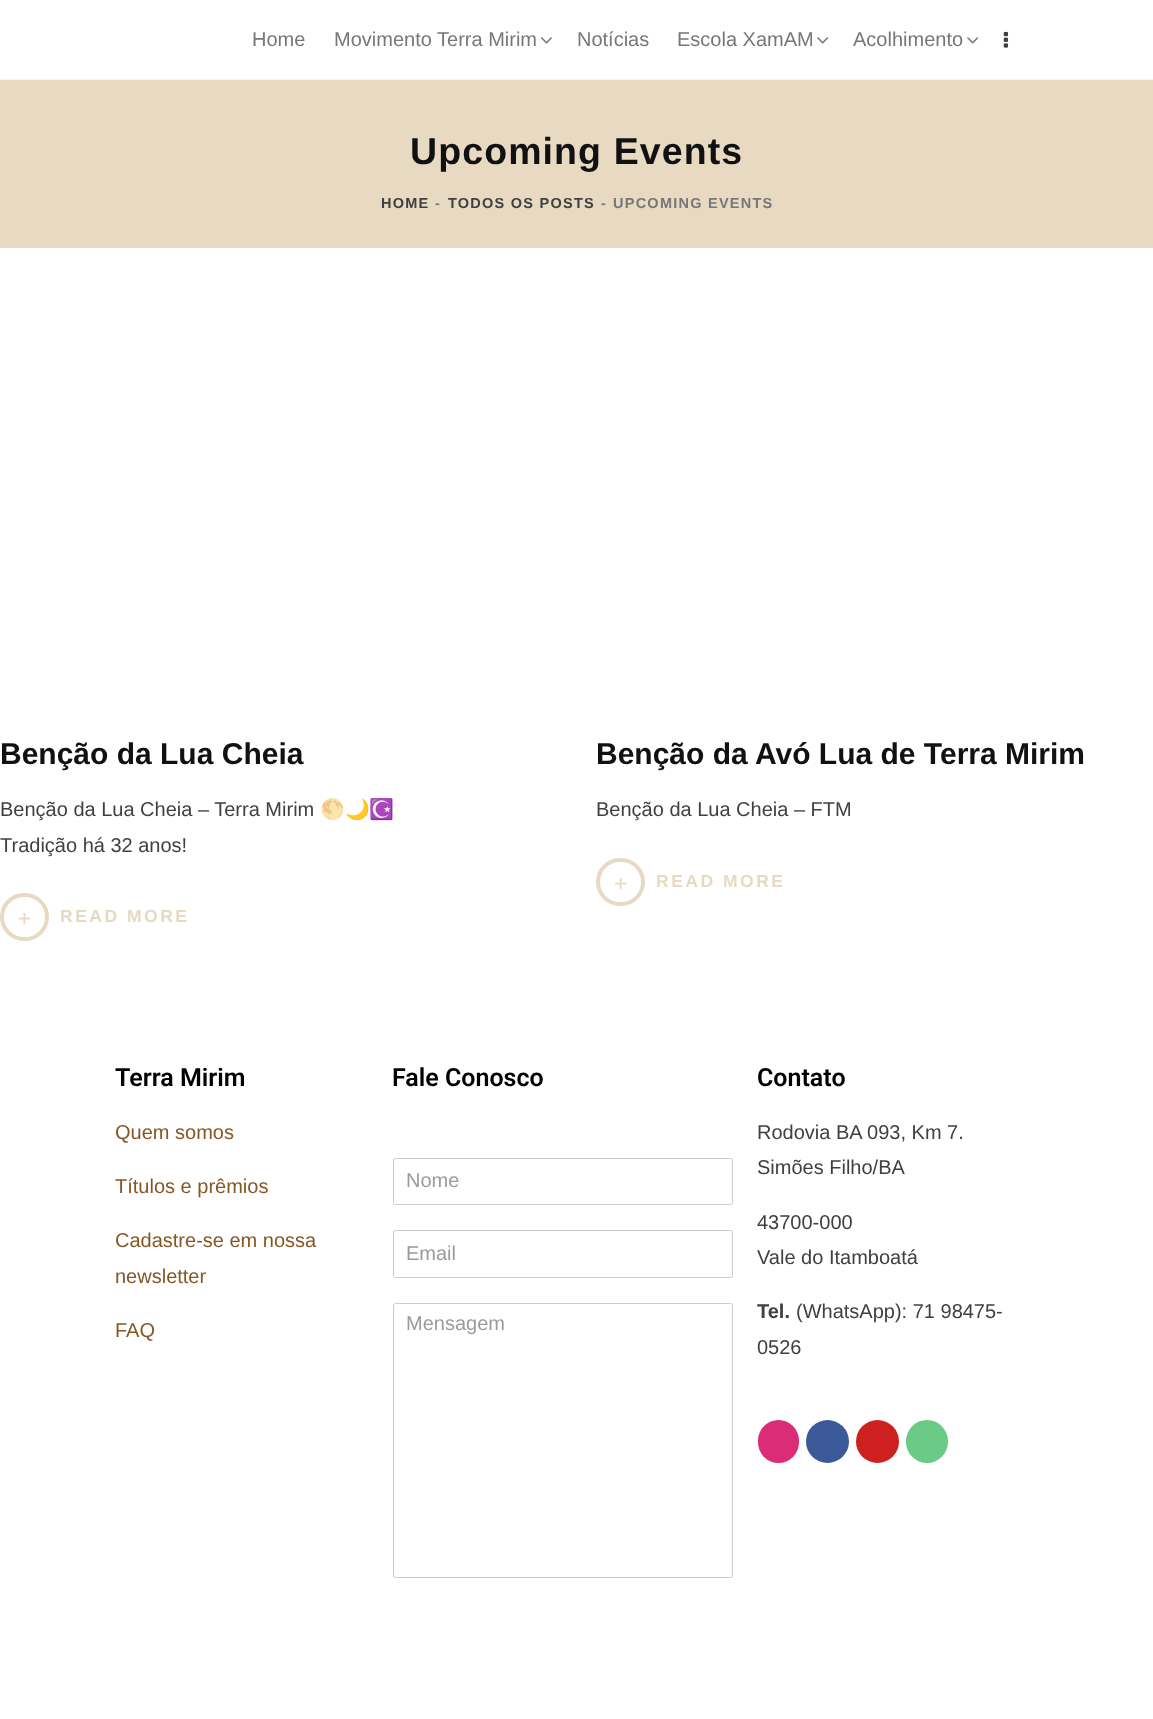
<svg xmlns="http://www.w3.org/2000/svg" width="1153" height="1719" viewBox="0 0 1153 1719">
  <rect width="100%" height="100%" fill="#ffffff"/>
  <rect x="0" y="79" width="1153" height="1" fill="#f6f5f1"/>
  <text x="252" y="46" font-family="Liberation Sans" font-size="20" fill="#777777">Home</text>
  <text x="334" y="46" font-family="Liberation Sans" font-size="20" fill="#777777">Movimento Terra Mirim</text>
  <image x="540" y="37" width="12" height="7" href="img1.png"/>
  <text x="577" y="46" font-family="Liberation Sans" font-size="20" fill="#777777">Notícias</text>
  <text x="677" y="46" font-family="Liberation Sans" font-size="20" fill="#777777">Escola XamAM</text>
  <image x="817" y="37" width="12" height="7" href="img2.png"/>
  <text x="853" y="46" font-family="Liberation Sans" font-size="20" fill="#777777">Acolhimento</text>
  <image x="967" y="37" width="12" height="7" href="img2.png"/>
  <image x="1003" y="31" width="6" height="17" href="img3.png"/>
  <rect x="0" y="80" width="1153" height="168" fill="#e8d9c2"/>
  <text x="410" y="164" font-family="Liberation Sans" font-size="37.5" font-weight="bold" letter-spacing="1.1" fill="#111111">Upcoming Events</text>
  <text x="381" y="208" font-family="Liberation Sans" font-size="14.5" font-weight="bold" letter-spacing="1.25" fill="#404040">HOME</text>
  <text x="435" y="208" font-family="Liberation Sans" font-size="14.5" font-weight="bold" letter-spacing="1.25" fill="#777777">-</text>
  <text x="448" y="208" font-family="Liberation Sans" font-size="14.5" font-weight="bold" letter-spacing="1.25" fill="#404040">TODOS OS POSTS</text>
  <text x="601" y="208" font-family="Liberation Sans" font-size="14.5" font-weight="bold" letter-spacing="1.25" fill="#777777">-</text>
  <text x="613" y="208" font-family="Liberation Sans" font-size="14.5" font-weight="bold" letter-spacing="1.25" fill="#777777">UPCOMING EVENTS</text>
  <text x="0" y="764" font-family="Liberation Sans" font-size="30" font-weight="bold" fill="#111111">Benção da Lua Cheia</text>
  <text x="0" y="816" font-family="Liberation Sans" font-size="20" fill="#404040">Benção da Lua Cheia – Terra Mirim</text>
  <text x="320" y="816" font-family="Noto Color Emoji" font-size="20" fill="#404040">🌕🌙☪️</text>
  <text x="0" y="852" font-family="Liberation Sans" font-size="20" fill="#404040">Tradição há 32 anos!</text>
  <rect x="2" y="895" width="45" height="44" rx="22" fill="none" stroke="#e8d9c2" stroke-width="4"/>
  <text x="60" y="922" font-family="Liberation Sans" font-size="17.5" font-weight="bold" letter-spacing="2.5" fill="#e8d9c2">READ MORE</text>
  <image x="18" y="913" width="12" height="12" href="img4.png"/>
  <text x="596" y="764" font-family="Liberation Sans" font-size="30" font-weight="bold" fill="#111111">Benção da Avó Lua de Terra Mirim</text>
  <text x="596" y="816" font-family="Liberation Sans" font-size="20" fill="#404040">Benção da Lua Cheia – FTM</text>
  <rect x="598" y="860" width="45" height="44" rx="22" fill="none" stroke="#e8d9c2" stroke-width="4"/>
  <text x="656" y="887" font-family="Liberation Sans" font-size="17.5" font-weight="bold" letter-spacing="2.5" fill="#e8d9c2">READ MORE</text>
  <image x="615" y="878" width="12" height="12" href="img5.png"/>
  <text x="115" y="1086" font-family="Roboto" font-size="25" font-weight="600" fill="#000000">Terra Mirim</text>
  <text x="115" y="1139" font-family="Liberation Sans" font-size="20" fill="#855723">Quem somos</text>
  <text x="115" y="1193" font-family="Liberation Sans" font-size="20" fill="#855723">Títulos e prêmios</text>
  <text x="115" y="1247" font-family="Liberation Sans" font-size="20" fill="#855723">Cadastre-se em nossa</text>
  <text x="115" y="1283" font-family="Liberation Sans" font-size="20" fill="#855723">newsletter</text>
  <text x="115" y="1337" font-family="Liberation Sans" font-size="20" fill="#855723">FAQ</text>
  <text x="392" y="1086" font-family="Roboto" font-size="25" font-weight="600" fill="#000000">Fale Conosco</text>
  <rect x="393.5" y="1158.5" width="339" height="46" rx="2" fill="none" stroke="#cccccc"/>
  <text x="406" y="1187" font-family="Liberation Sans" font-size="20" fill="#989c9c">Nome</text>
  <rect x="393.5" y="1230.5" width="339" height="47" rx="2" fill="none" stroke="#cccccc"/>
  <text x="406" y="1260" font-family="Liberation Sans" font-size="20" fill="#989c9c">Email</text>
  <rect x="393.5" y="1303.5" width="339" height="274" rx="2" fill="none" stroke="#cccccc"/>
  <text x="406" y="1330" font-family="Liberation Sans" font-size="20" fill="#989c9c">Mensagem</text>
  <text x="757" y="1086" font-family="Roboto" font-size="25" font-weight="600" fill="#000000">Contato</text>
  <text x="757" y="1139" font-family="Liberation Sans" font-size="20" fill="#404040">Rodovia BA 093, Km 7.</text>
  <text x="757" y="1174" font-family="Liberation Sans" font-size="20" fill="#404040">Simões Filho/BA</text>
  <text x="757" y="1229" font-family="Liberation Sans" font-size="20" fill="#404040">43700-000</text>
  <text x="757" y="1264" font-family="Liberation Sans" font-size="20" fill="#404040">Vale do Itamboatá</text>
  <text x="757" y="1318" font-family="Liberation Sans" font-size="20" font-weight="bold" fill="#404040">Tel.</text>
  <text x="796" y="1318" font-family="Liberation Sans" font-size="20" fill="#404040">(WhatsApp): 71 98475-</text>
  <text x="757" y="1354" font-family="Liberation Sans" font-size="20" fill="#404040">0526</text>
  <rect x="758" y="1420" width="41" height="43" rx="20.5" fill="#db2d77"/>
  <circle cx="827.5" cy="1441.5" r="21.5" fill="#3b5998"/>
  <circle cx="877.5" cy="1441.5" r="21.5" fill="#cd201f"/>
  <rect x="906" y="1420" width="42" height="43" rx="21" fill="#69cb85"/>
</svg>
